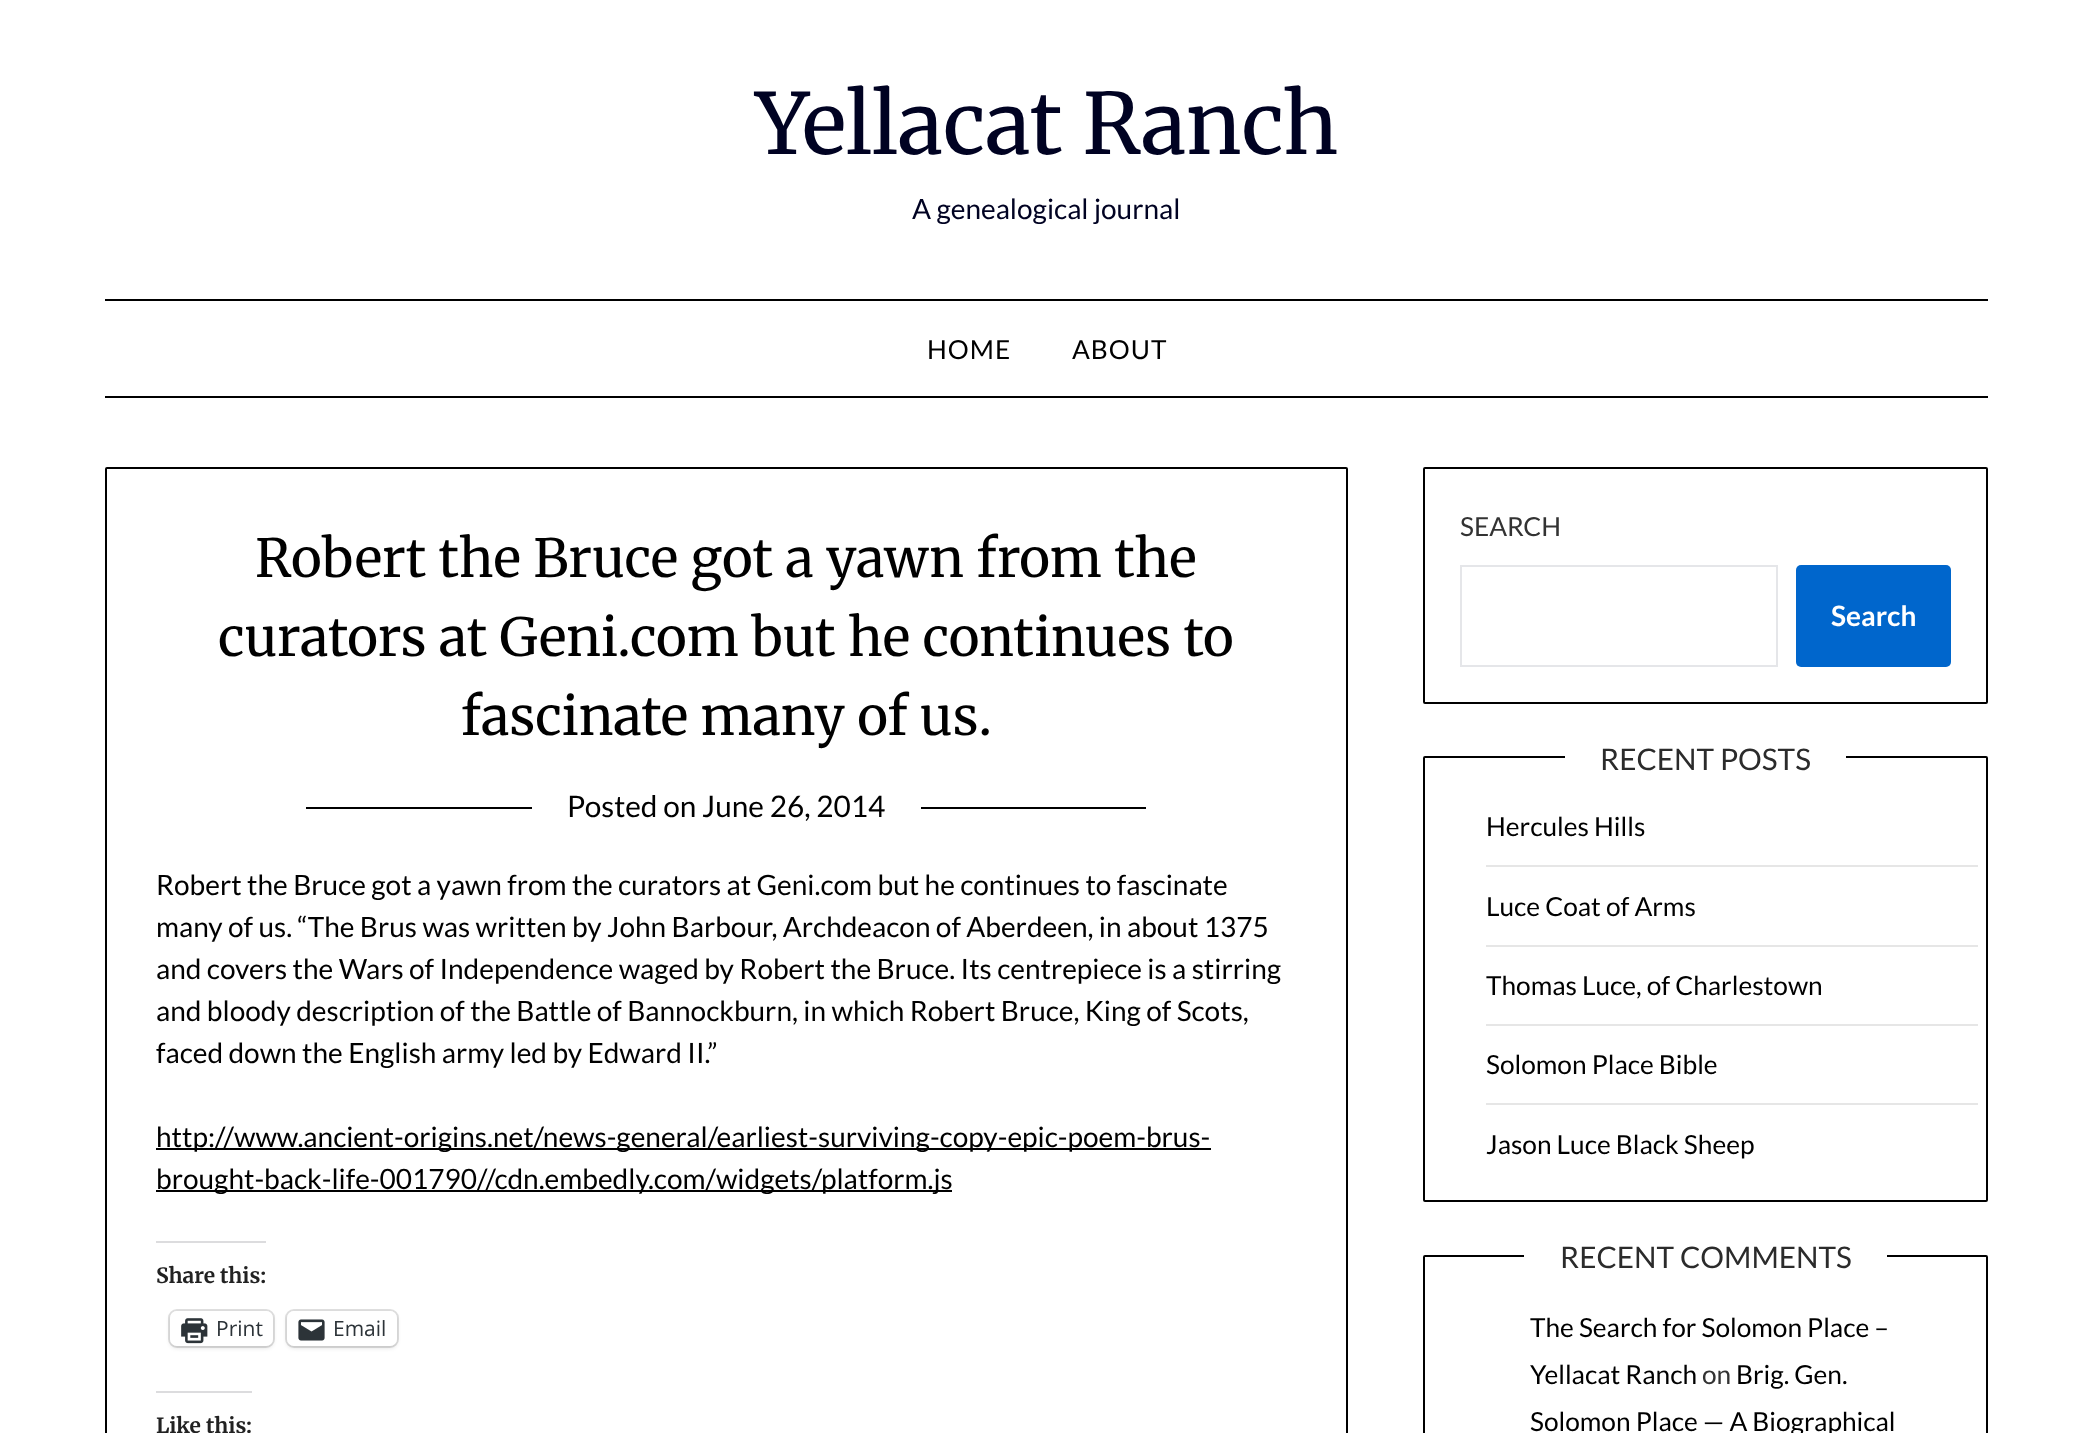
<svg xmlns="http://www.w3.org/2000/svg" width="2093" height="1433" viewBox="0 0 2093 1433">
  <defs>
    <filter id="blur1" x="-50%" y="-200%" width="200%" height="500%"><feGaussianBlur stdDeviation="2"/></filter>
  </defs>
  <rect width="100%" height="100%" fill="#ffffff"/>
  <text x="755" y="154" font-family="Merriweather" font-size="84" fill="#000222">Yellacat Ranch</text>
  <text x="912" y="219" font-family="Lato" font-size="28" fill="#000222">A genealogical journal</text>
  <rect x="105" y="299" width="1883" height="2" fill="#000000"/>
  <rect x="105" y="396" width="1883" height="2" fill="#000000"/>
  <text x="927" y="359" font-family="Lato" font-size="26.25" letter-spacing="1" fill="#000000">HOME</text>
  <text x="1072" y="359" font-family="Lato" font-size="26.25" letter-spacing="1" fill="#000000">ABOUT</text>
  <rect x="106" y="468" width="1241" height="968" rx="1" fill="none" stroke="#000000" stroke-width="2"/>
  <text x="255" y="577" font-family="Merriweather" font-size="52.5" fill="#000000">Robert the Bruce got a yawn from the</text>
  <text x="218" y="656" font-family="Merriweather" font-size="52.5" fill="#000000">curators at Geni.com but he continues to</text>
  <text x="461" y="735" font-family="Merriweather" font-size="52.5" fill="#000000">fascinate many of us.</text>
  <rect x="306" y="807" width="840" height="2" fill="#000000"/>
  <rect x="532" y="807" width="389" height="2" fill="#ffffff"/>
  <text x="567" y="817" font-family="Lato" font-size="29.75" fill="#000000">Posted on June 26, 2014</text>
  <text x="156" y="895" font-family="Lato" font-size="28" fill="#000000">Robert the Bruce got a yawn from the curators at Geni.com but he continues to fascinate</text>
  <text x="156" y="937" font-family="Lato" font-size="28" fill="#000000">many of us. “The Brus was written by John Barbour, Archdeacon of Aberdeen, in about 1375</text>
  <text x="156" y="979" font-family="Lato" font-size="28" fill="#000000">and covers the Wars of Independence waged by Robert the Bruce. Its centrepiece is a stirring</text>
  <text x="156" y="1021" font-family="Lato" font-size="28" fill="#000000">and bloody description of the Battle of Bannockburn, in which Robert Bruce, King of Scots,</text>
  <text x="156" y="1063" font-family="Lato" font-size="28" fill="#000000">faced down the English army led by Edward II.”</text>
  <rect x="156" y="1148" width="1055" height="2" fill="#000000"/>
  <text x="156" y="1147" font-family="Lato" font-size="28" fill="#000000">http://www.ancient-origins.net/news-general/earliest-surviving-copy-epic-poem-brus-</text>
  <rect x="156" y="1190" width="796" height="2" fill="#000000"/>
  <text x="156" y="1189" font-family="Lato" font-size="28" fill="#000000">brought-back-life-001790//cdn.embedly.com/widgets/platform.js</text>
  <rect x="156" y="1241" width="110" height="2" fill="#dcdcde"/>
  <text x="156" y="1283" font-family="Merriweather" font-size="21" font-weight="bold" fill="#222222">Share this:</text>
  <rect x="169" y="1310" width="105" height="37" rx="8" fill="none" stroke="#e0e0e0" stroke-width="2"/>
  <rect x="170" y="1313" width="103" height="35" rx="7" fill="#000000" fill-opacity="0.12" filter="url(#blur1)"/>
  <rect x="170" y="1311" width="103" height="35" rx="7" fill="#ffffff"/>
  <image x="181" y="1318" width="27" height="26" href="img1.png"/>
  <text x="216" y="1336" font-family="Open Sans" font-size="21" fill="#2c3338">Print</text>
  <rect x="286" y="1310" width="112" height="37" rx="8" fill="none" stroke="#e0e0e0" stroke-width="2"/>
  <rect x="287" y="1313" width="110" height="35" rx="7" fill="#000000" fill-opacity="0.12" filter="url(#blur1)"/>
  <rect x="287" y="1311" width="110" height="35" rx="7" fill="#ffffff"/>
  <image x="298" y="1319" width="27" height="22" href="img2.png"/>
  <text x="333" y="1336" font-family="Open Sans" font-size="21" fill="#2c3338">Email</text>
  <rect x="156" y="1391" width="96" height="2" fill="#dcdcde"/>
  <text x="156" y="1433" font-family="Merriweather" font-size="21" font-weight="bold" fill="#222222">Like this:</text>
  <rect x="1424" y="468" width="563" height="235" rx="1" fill="none" stroke="#000000" stroke-width="2"/>
  <text x="1460" y="536" font-family="Lato" font-size="26.25" fill="#333333">SEARCH</text>
  <rect x="1461" y="566" width="316" height="100" fill="none" stroke="#e5e6e9" stroke-width="2"/>
  <rect x="1796" y="565" width="155" height="102" rx="5" fill="#0066cc"/>
  <text x="1831" y="626" font-family="Lato" font-size="28" font-weight="bold" fill="#ffffff">Search</text>
  <rect x="1424" y="757" width="563" height="444" rx="1" fill="none" stroke="#000000" stroke-width="2"/>
  <rect x="1565" y="756" width="281" height="2" fill="#ffffff"/>
  <text x="1600" y="770" font-family="Lato" font-size="29.75" fill="#2b2b2b">RECENT POSTS</text>
  <rect x="1486" y="865" width="492" height="2" fill="#e6e6e6"/>
  <text x="1486" y="836" font-family="Lato" font-size="26.25" fill="#000000">Hercules Hills</text>
  <rect x="1486" y="945" width="492" height="2" fill="#e6e6e6"/>
  <text x="1486" y="916" font-family="Lato" font-size="26.25" fill="#000000">Luce Coat of Arms</text>
  <rect x="1486" y="1024" width="492" height="2" fill="#e6e6e6"/>
  <text x="1486" y="995" font-family="Lato" font-size="26.25" fill="#000000">Thomas Luce, of Charlestown</text>
  <rect x="1486" y="1103" width="492" height="2" fill="#e6e6e6"/>
  <text x="1486" y="1074" font-family="Lato" font-size="26.25" fill="#000000">Solomon Place Bible</text>
  <text x="1486" y="1154" font-family="Lato" font-size="26.25" fill="#000000">Jason Luce Black Sheep</text>
  <rect x="1424" y="1256" width="563" height="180" rx="1" fill="none" stroke="#000000" stroke-width="2"/>
  <rect x="1524" y="1255" width="363" height="2" fill="#ffffff"/>
  <text x="1560" y="1268" font-family="Lato" font-size="29.75" fill="#2b2b2b">RECENT COMMENTS</text>
  <text x="1530" y="1337" font-family="Lato" font-size="26.25" fill="#000000">The Search for Solomon Place –</text>
  <text x="1530" y="1384" font-family="Lato" font-size="26.25" fill="#000000">Yellacat Ranch</text>
  <text x="1702" y="1384" font-family="Lato" font-size="26.25" fill="#333333">on</text>
  <text x="1736" y="1384" font-family="Lato" font-size="26.25" fill="#000000">Brig. Gen.</text>
  <text x="1530" y="1431" font-family="Lato" font-size="26.25" fill="#000000">Solomon Place — A Biographical</text>
</svg>
